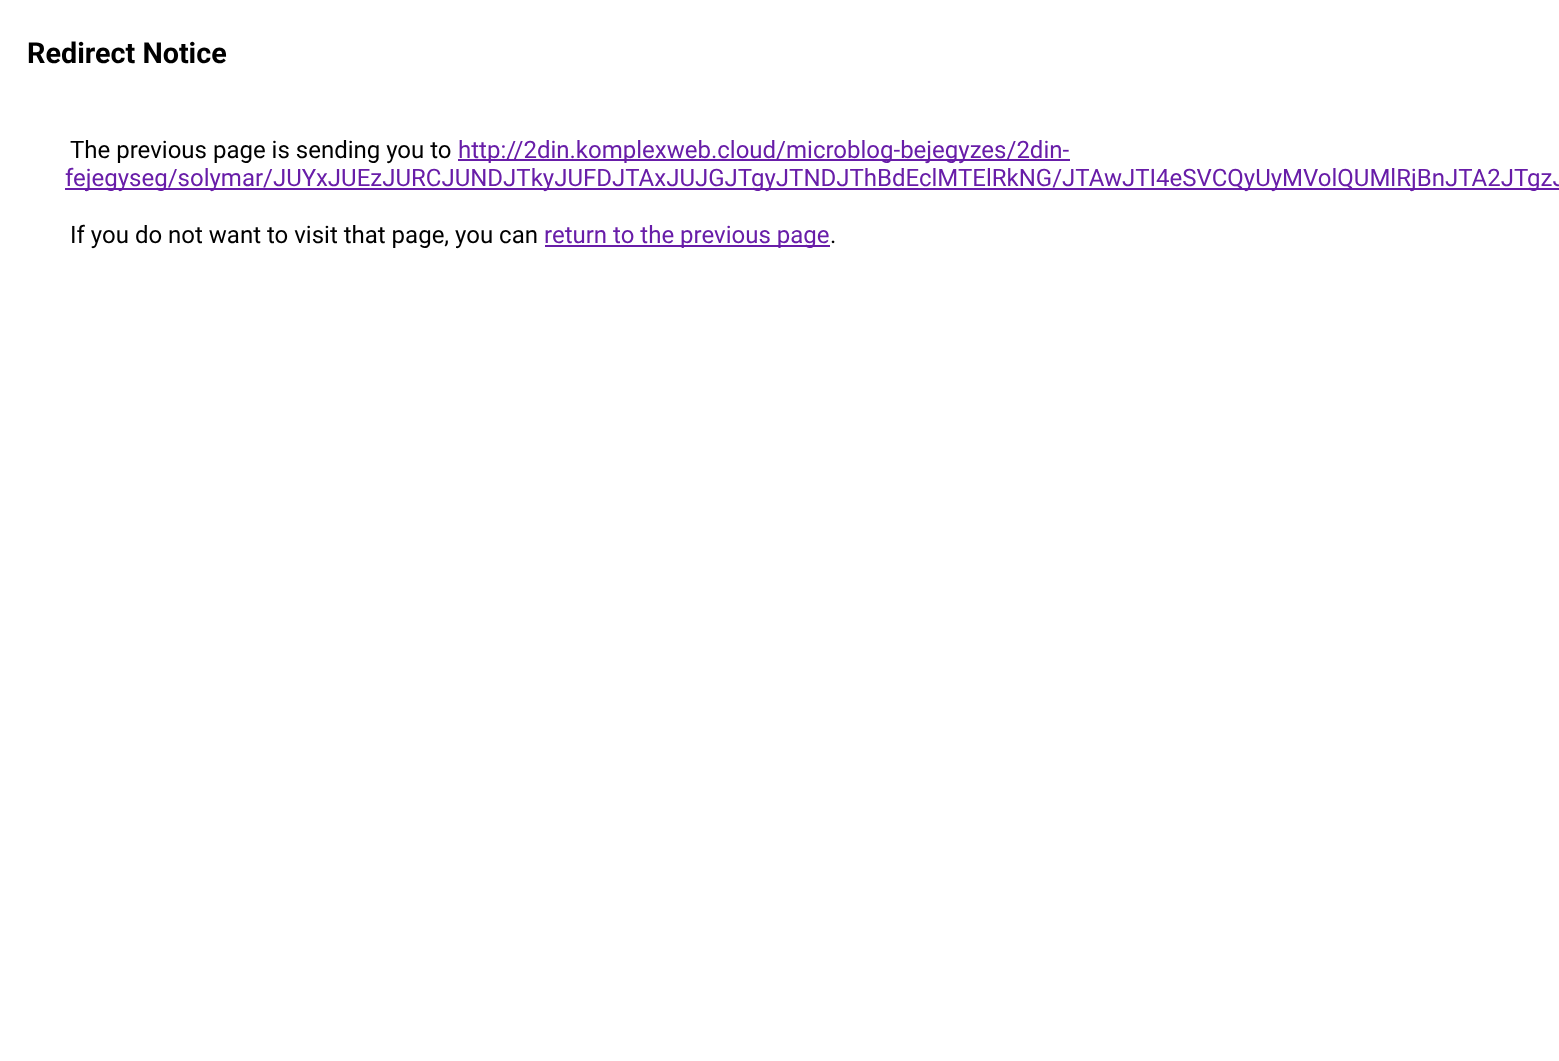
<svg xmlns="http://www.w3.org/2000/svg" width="1559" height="1061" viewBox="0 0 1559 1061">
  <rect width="100%" height="100%" fill="#ffffff"/>
  <text x="27" y="63" font-family="Roboto" font-size="28.75" font-weight="bold" fill="#000000">Redirect Notice</text>
  <text x="70" y="158" font-family="Roboto" font-size="24" fill="#000000">The previous page is sending you to</text>
  <rect x="458" y="159" width="612" height="2" fill="#681da8"/>
  <text x="458" y="158" font-family="Roboto" font-size="24" fill="#681da8">http://2din.komplexweb.cloud/microblog-bejegyzes/2din-</text>
  <rect x="65" y="188" width="1494" height="2" fill="#681da8"/>
  <text x="65" y="186" font-family="Roboto" font-size="24" fill="#681da8">fejegyseg/solymar/JUYxJUEzJURCJUNDJTkyJUFDJTAxJUJGJTgyJTNDJThBdEclMTElRkNG/JTAwJTI4eSVCQyUyMVolQUMlRjBnJTA2JTgzJ</text>
  <text x="70" y="243" font-family="Roboto" font-size="24" fill="#000000">If you do not want to visit that page, you can</text>
  <rect x="545" y="245" width="285" height="2" fill="#681da8"/>
  <text x="544" y="243" font-family="Roboto" font-size="24" fill="#681da8">return to the previous page</text>
  <text x="830" y="243" font-family="Roboto" font-size="24" fill="#000000">.</text>
</svg>
